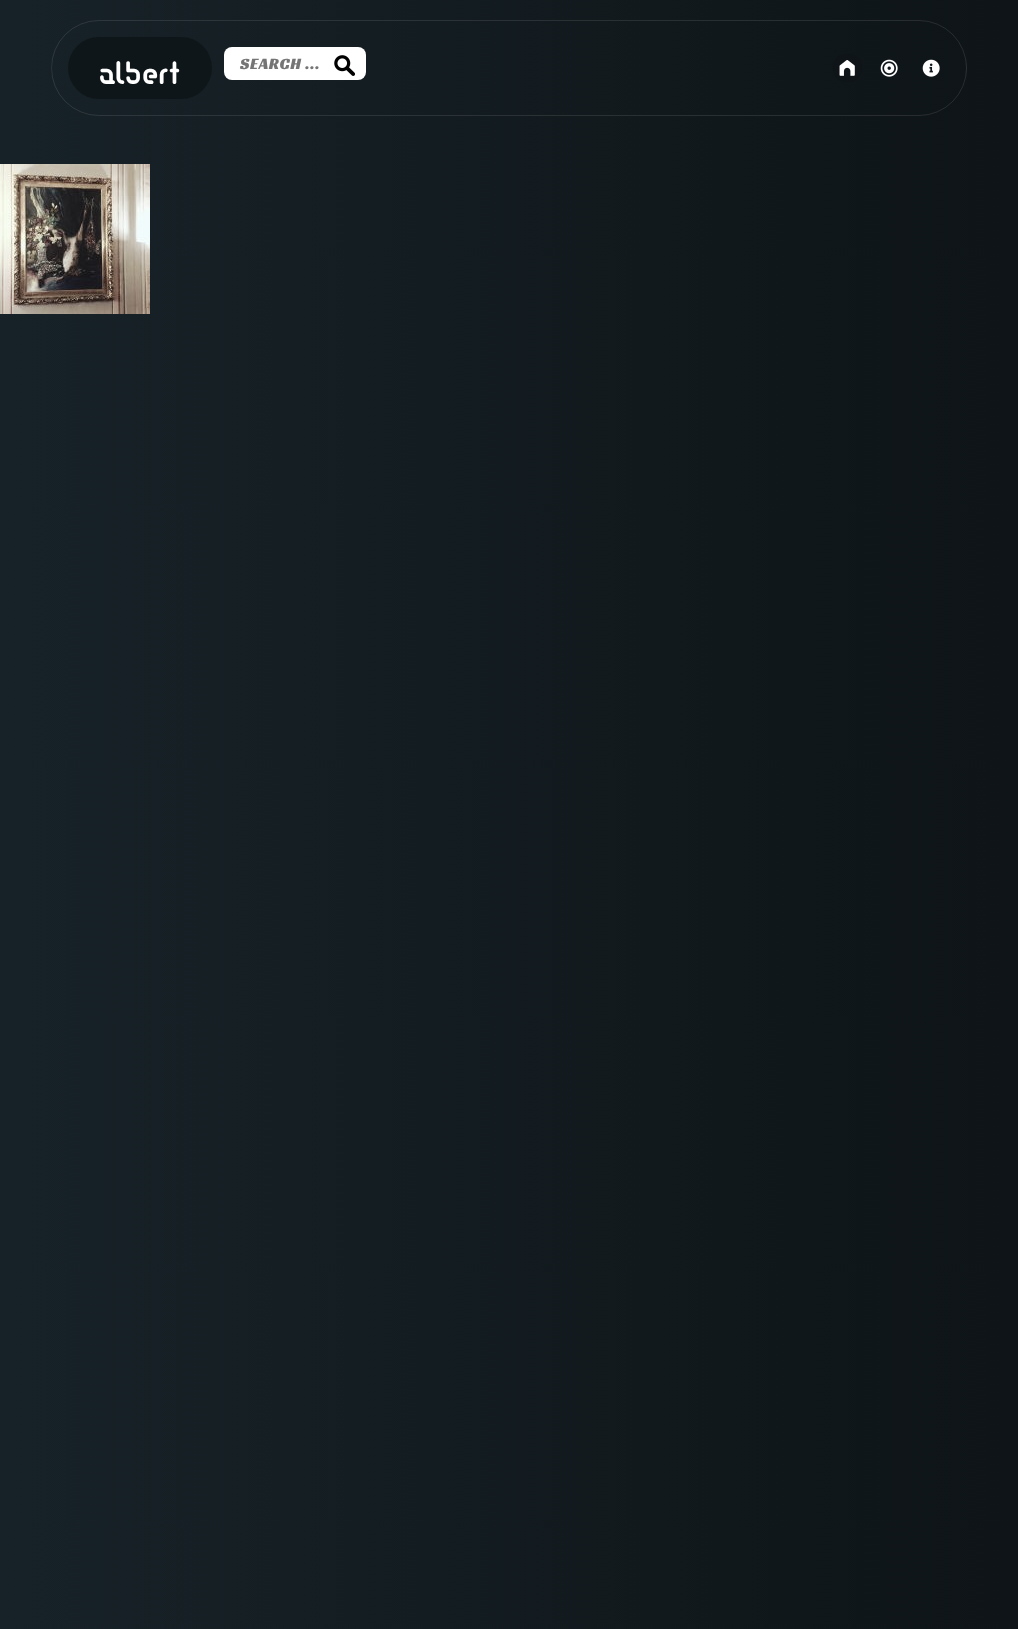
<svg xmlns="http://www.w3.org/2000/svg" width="1018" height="1629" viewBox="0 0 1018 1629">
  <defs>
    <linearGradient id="g1" gradientUnits="userSpaceOnUse" x1="0" y1="815" x2="1018" y2="815"><stop offset="0" stop-color="#172228"/><stop offset="1" stop-color="#0e1417"/></linearGradient>
    <clipPath id="clip1"><rect x="51" y="20" width="916" height="96" rx="48"/></clipPath>
    <linearGradient id="g2" gradientUnits="userSpaceOnUse" x1="-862" y1="68" x2="52" y2="68"><stop offset="0" stop-color="#172228"/><stop offset="1" stop-color="#131b1f"/></linearGradient>
    <linearGradient id="g3" gradientUnits="userSpaceOnUse" x1="966" y1="68" x2="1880" y2="68"><stop offset="0" stop-color="#131c20"/><stop offset="1" stop-color="#0e1518"/></linearGradient>
  </defs>
  <rect width="100%" height="100%" fill="#ffffff"/>
  <rect x="0" y="0" width="1018" height="1629" fill="url(#g1)"/>
  <g clip-path="url(#clip1)">
    <rect x="51" y="58" width="1" height="20" fill="url(#g2)"/>
    <rect x="966" y="58" width="1" height="20" fill="url(#g3)"/>
  </g>
  <rect x="51.5" y="20.5" width="915" height="95" rx="47.5" fill="none" stroke="#ffffff" stroke-opacity="0.1"/>
  <rect x="68" y="37" width="144" height="62" rx="31" fill="#0e1417" fill-opacity="0.8"/>
  <text x="100" y="84" font-family="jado" font-size="50" letter-spacing="-0.5" fill="#ffffff">albert</text>
  <rect x="833" y="54" width="29" height="28" rx="14" fill="#0e1418"/>
  <image x="839" y="60" width="16" height="16" href="img1.png"/>
  <image x="880" y="59" width="18" height="18" href="img2.png"/>
  <image x="922" y="59" width="18" height="18" href="img3.png"/>
  <rect x="224" y="47" width="142" height="33" rx="8" fill="#ffffff"/>
  <text x="240" y="69" font-family="Racing Sans One" font-size="16" letter-spacing="0.6" fill="#757575">SEARCH ...</text>
  <image x="334" y="55" width="21" height="21" href="img4.png"/>
  <image x="0" y="164" width="150" height="150" href="img5.png"/>
</svg>
